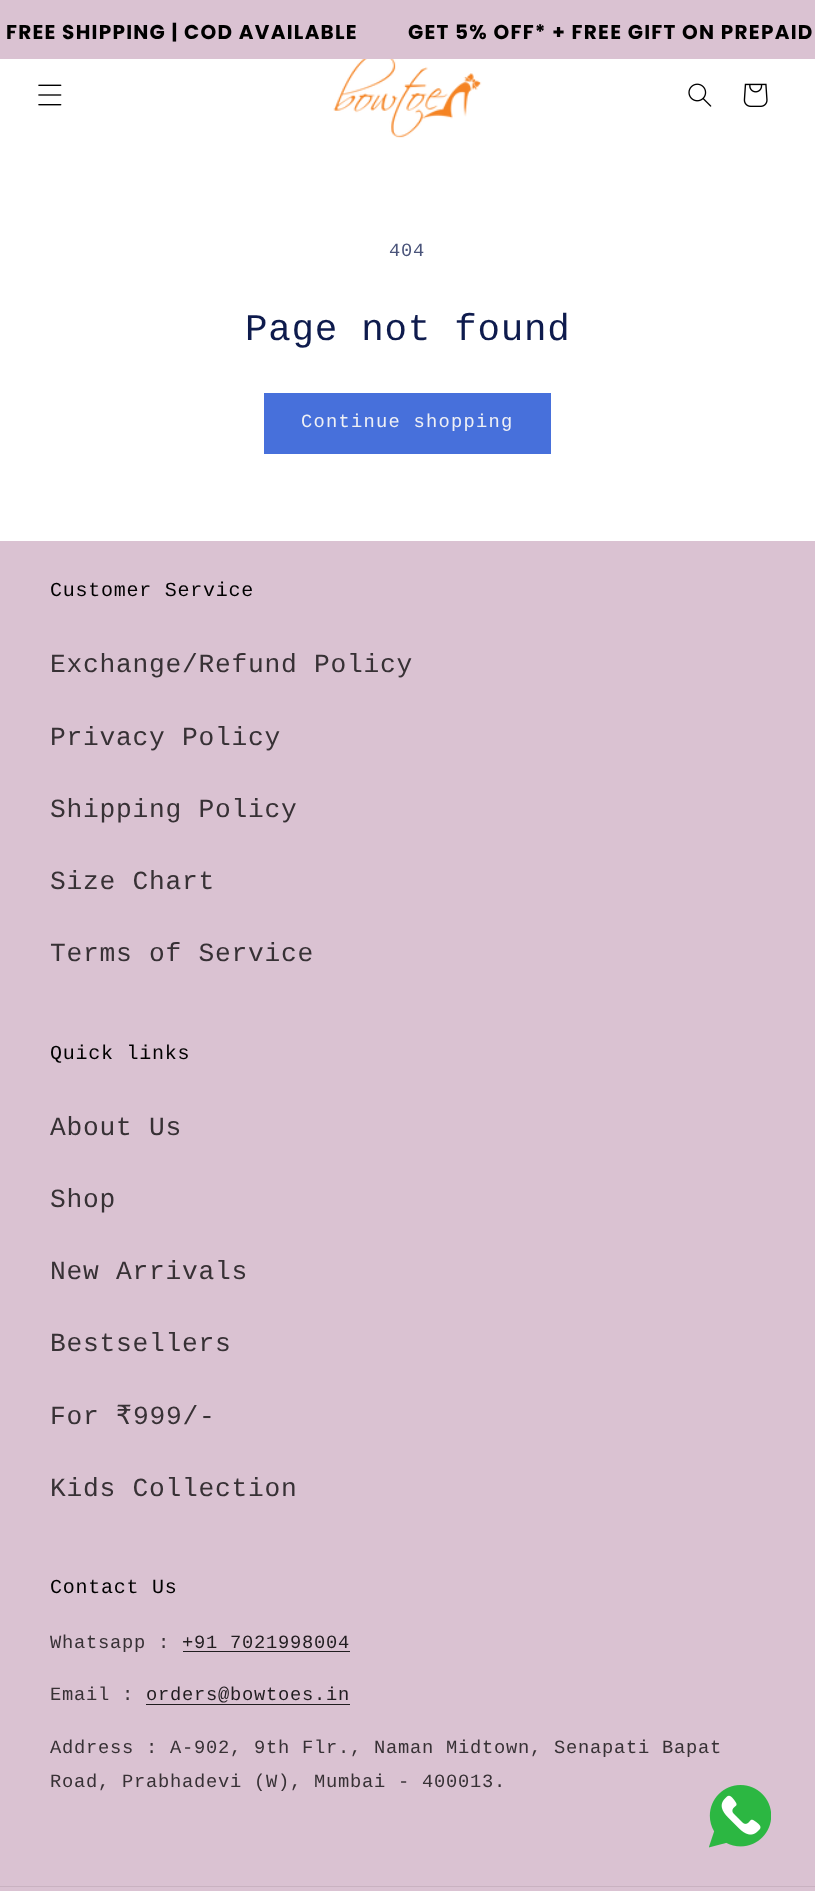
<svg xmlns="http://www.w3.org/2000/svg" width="815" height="1891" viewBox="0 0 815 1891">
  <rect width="100%" height="100%" fill="#ffffff"/>
  <rect x="0" y="0" width="815" height="59" fill="#dac2d2"/>
  <text x="6" y="39" font-family="Poppins" font-size="20" font-weight="bold" letter-spacing="1.25" fill="#000000">FREE SHIPPING | COD AVAILABLE</text>
  <text x="408" y="39" font-family="Poppins" font-size="20" font-weight="bold" letter-spacing="1.25" fill="#000000">GET 5% OFF* + FREE GIFT ON PREPAID</text>
  <image x="38" y="84" width="24" height="22" href="img1.png"/>
  <image x="333" y="59" width="149" height="79" href="img2.png"/>
  <image x="688" y="83" width="24" height="24" href="img3.png"/>
  <image x="743" y="83" width="25" height="24" href="img4.png"/>
  <text x="389" y="256" font-family="Liberation Mono" font-size="18.75" letter-spacing="0.75" fill="#4a547a">404</text>
  <text x="245" y="340" font-family="Liberation Mono" font-size="37.5" letter-spacing="0.75" fill="#0e1b4d">Page not found</text>
  <rect x="264" y="393" width="287" height="61" fill="#4770db"/>
  <text x="301" y="427" font-family="Liberation Mono" font-size="18.75" letter-spacing="1.25" fill="#eff0f5">Continue shopping</text>
  <rect x="0" y="541" width="815" height="1350" fill="#dac2d2"/>
  <text x="50" y="596" font-family="Liberation Mono" font-size="20" letter-spacing="0.75" fill="#000000">Customer Service</text>
  <text x="50" y="672" font-family="Liberation Mono" font-size="26.25" letter-spacing="0.75" fill="#373135">Exchange/Refund Policy</text>
  <text x="50" y="745" font-family="Liberation Mono" font-size="26.25" letter-spacing="0.75" fill="#373135">Privacy Policy</text>
  <text x="50" y="817" font-family="Liberation Mono" font-size="26.25" letter-spacing="0.75" fill="#373135">Shipping Policy</text>
  <text x="50" y="889" font-family="Liberation Mono" font-size="26.25" letter-spacing="0.75" fill="#373135">Size Chart</text>
  <text x="50" y="961" font-family="Liberation Mono" font-size="26.25" letter-spacing="0.75" fill="#373135">Terms of Service</text>
  <text x="50" y="1059" font-family="Liberation Mono" font-size="20" letter-spacing="0.75" fill="#000000">Quick links</text>
  <text x="50" y="1135" font-family="Liberation Mono" font-size="26.25" letter-spacing="0.75" fill="#373135">About Us</text>
  <text x="50" y="1207" font-family="Liberation Mono" font-size="26.25" letter-spacing="0.75" fill="#373135">Shop</text>
  <text x="50" y="1279" font-family="Liberation Mono" font-size="26.25" letter-spacing="0.75" fill="#373135">New Arrivals</text>
  <text x="50" y="1351" font-family="Liberation Mono" font-size="26.25" letter-spacing="0.75" fill="#373135">Bestsellers</text>
  <text x="50" y="1424" font-family="Liberation Mono" font-size="26.25" letter-spacing="0.75" fill="#373135">For</text>
  <text x="116" y="1424" font-family="DejaVu Sans Mono" font-size="26.25" letter-spacing="0.75" fill="#373135">₹</text>
  <text x="133" y="1424" font-family="Liberation Mono" font-size="26.25" letter-spacing="0.75" fill="#373135">999/-</text>
  <text x="50" y="1496" font-family="Liberation Mono" font-size="26.25" letter-spacing="0.75" fill="#373135">Kids Collection</text>
  <text x="50" y="1593" font-family="Liberation Mono" font-size="20" letter-spacing="0.75" fill="#000000">Contact Us</text>
  <text x="50" y="1648" font-family="Liberation Mono" font-size="18.75" letter-spacing="0.75" fill="#373135">Whatsapp :</text>
  <text x="182" y="1648" font-family="Liberation Mono" font-size="18.75" letter-spacing="0.75" fill="#211d20">+91 7021998004</text>
  <rect x="183" y="1651" width="167" height="1" fill="#211d20"/>
  <text x="50" y="1700" font-family="Liberation Mono" font-size="18.75" letter-spacing="0.75" fill="#373135">Email :</text>
  <text x="146" y="1700" font-family="Liberation Mono" font-size="18.75" letter-spacing="0.75" fill="#211d20">orders@bowtoes.in</text>
  <rect x="146" y="1704" width="204" height="1" fill="#211d20"/>
  <text x="50" y="1753" font-family="Liberation Mono" font-size="18.75" letter-spacing="0.75" fill="#373135">Address : A-902, 9th Flr., Naman Midtown, Senapati Bapat</text>
  <text x="50" y="1787" font-family="Liberation Mono" font-size="18.75" letter-spacing="0.75" fill="#373135">Road, Prabhadevi (W), Mumbai - 400013.</text>
  <rect x="0" y="1886" width="815" height="1" fill="#c9b2c1"/>
  <image x="709" y="1785" width="62" height="63" href="img5.png"/>
</svg>
